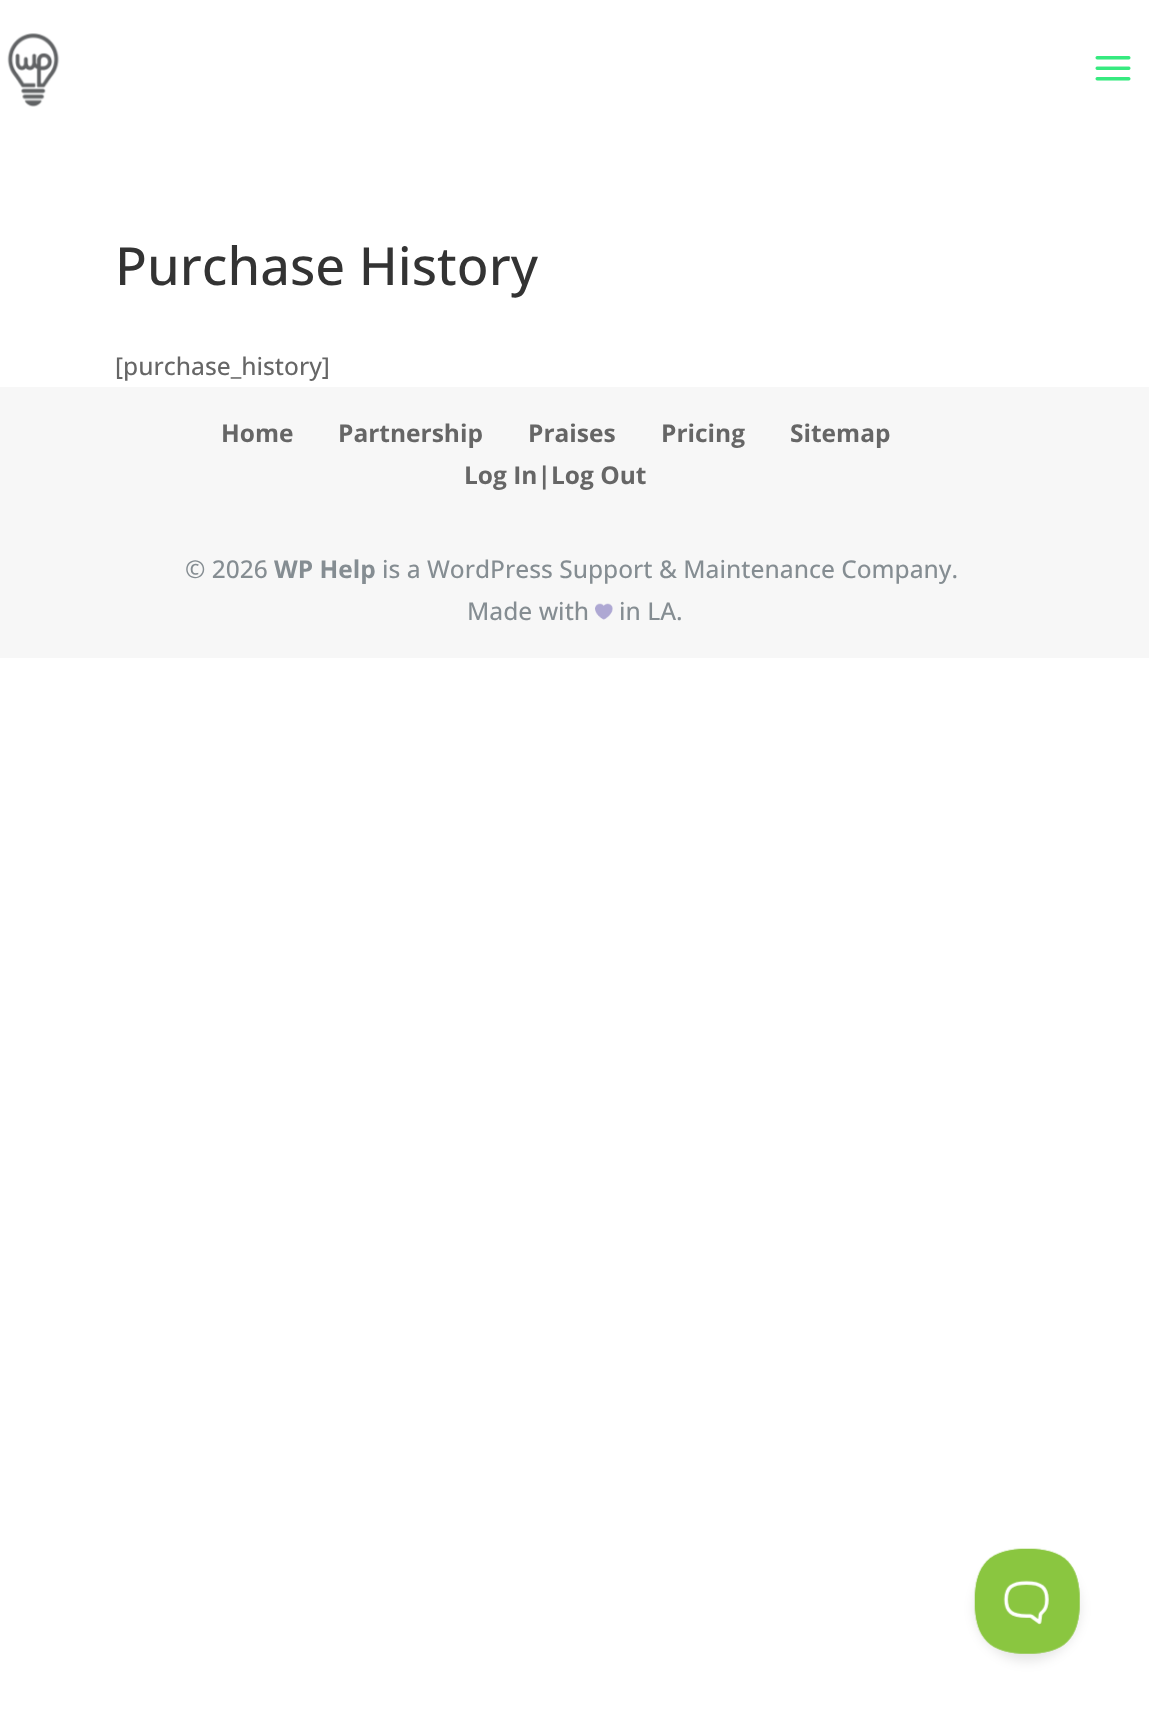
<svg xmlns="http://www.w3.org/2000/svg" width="1149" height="1723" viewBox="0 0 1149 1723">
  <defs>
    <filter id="blur1" x="-50%" y="-200%" width="200%" height="500%"><feGaussianBlur stdDeviation="6"/></filter>
  </defs>
  <rect width="100%" height="100%" fill="#ffffff"/>
  <image x="7" y="33" width="53" height="74" href="img1.png"/>
  <image x="1095" y="56" width="36" height="25" href="img2.png"/>
  <text x="115" y="285" font-family="Open Sans" font-size="52.5" font-weight="500" fill="#333333">Purchase History</text>
  <text x="115" y="375" font-family="Open Sans" font-size="24.5" font-weight="500" fill="#666666">[purchase_history]</text>
  <rect x="0" y="387" width="1149" height="271" fill="#f7f7f7"/>
  <text x="221" y="442" font-family="Open Sans" font-size="24.5" font-weight="bold" fill="#666666">Home</text>
  <text x="338" y="442" font-family="Open Sans" font-size="24.5" font-weight="bold" fill="#666666">Partnership</text>
  <text x="528" y="442" font-family="Open Sans" font-size="24.5" font-weight="bold" fill="#666666">Praises</text>
  <text x="661" y="442" font-family="Open Sans" font-size="24.5" font-weight="bold" fill="#666666">Pricing</text>
  <text x="790" y="442" font-family="Open Sans" font-size="24.5" font-weight="bold" fill="#666666">Sitemap</text>
  <text x="464" y="484" font-family="Open Sans" font-size="24.5" font-weight="bold" fill="#666666">Log In|Log Out</text>
  <text x="185" y="578" font-family="Open Sans" font-size="24.5" font-weight="500" fill="#858d92">© 2026</text>
  <text x="274" y="578" font-family="Open Sans" font-size="24.5" font-weight="bold" fill="#858d92">WP Help</text>
  <text x="382" y="578" font-family="Open Sans" font-size="24.5" font-weight="500" fill="#858d92">is a WordPress Support &amp; Maintenance Company.</text>
  <text x="467" y="620" font-family="Open Sans" font-size="24.5" font-weight="500" fill="#858d92">Made with</text>
  <image x="595" y="603" width="18" height="17" href="img3.png"/>
  <text x="619" y="620" font-family="Open Sans" font-size="24.5" font-weight="500" fill="#858d92">in LA.</text>
  <rect x="975" y="1556" width="105" height="105" rx="52.5" fill="#000000" fill-opacity="0.1" filter="url(#blur1)"/>
  <image x="974" y="1548" width="106" height="106" href="img4.png"/>
</svg>
